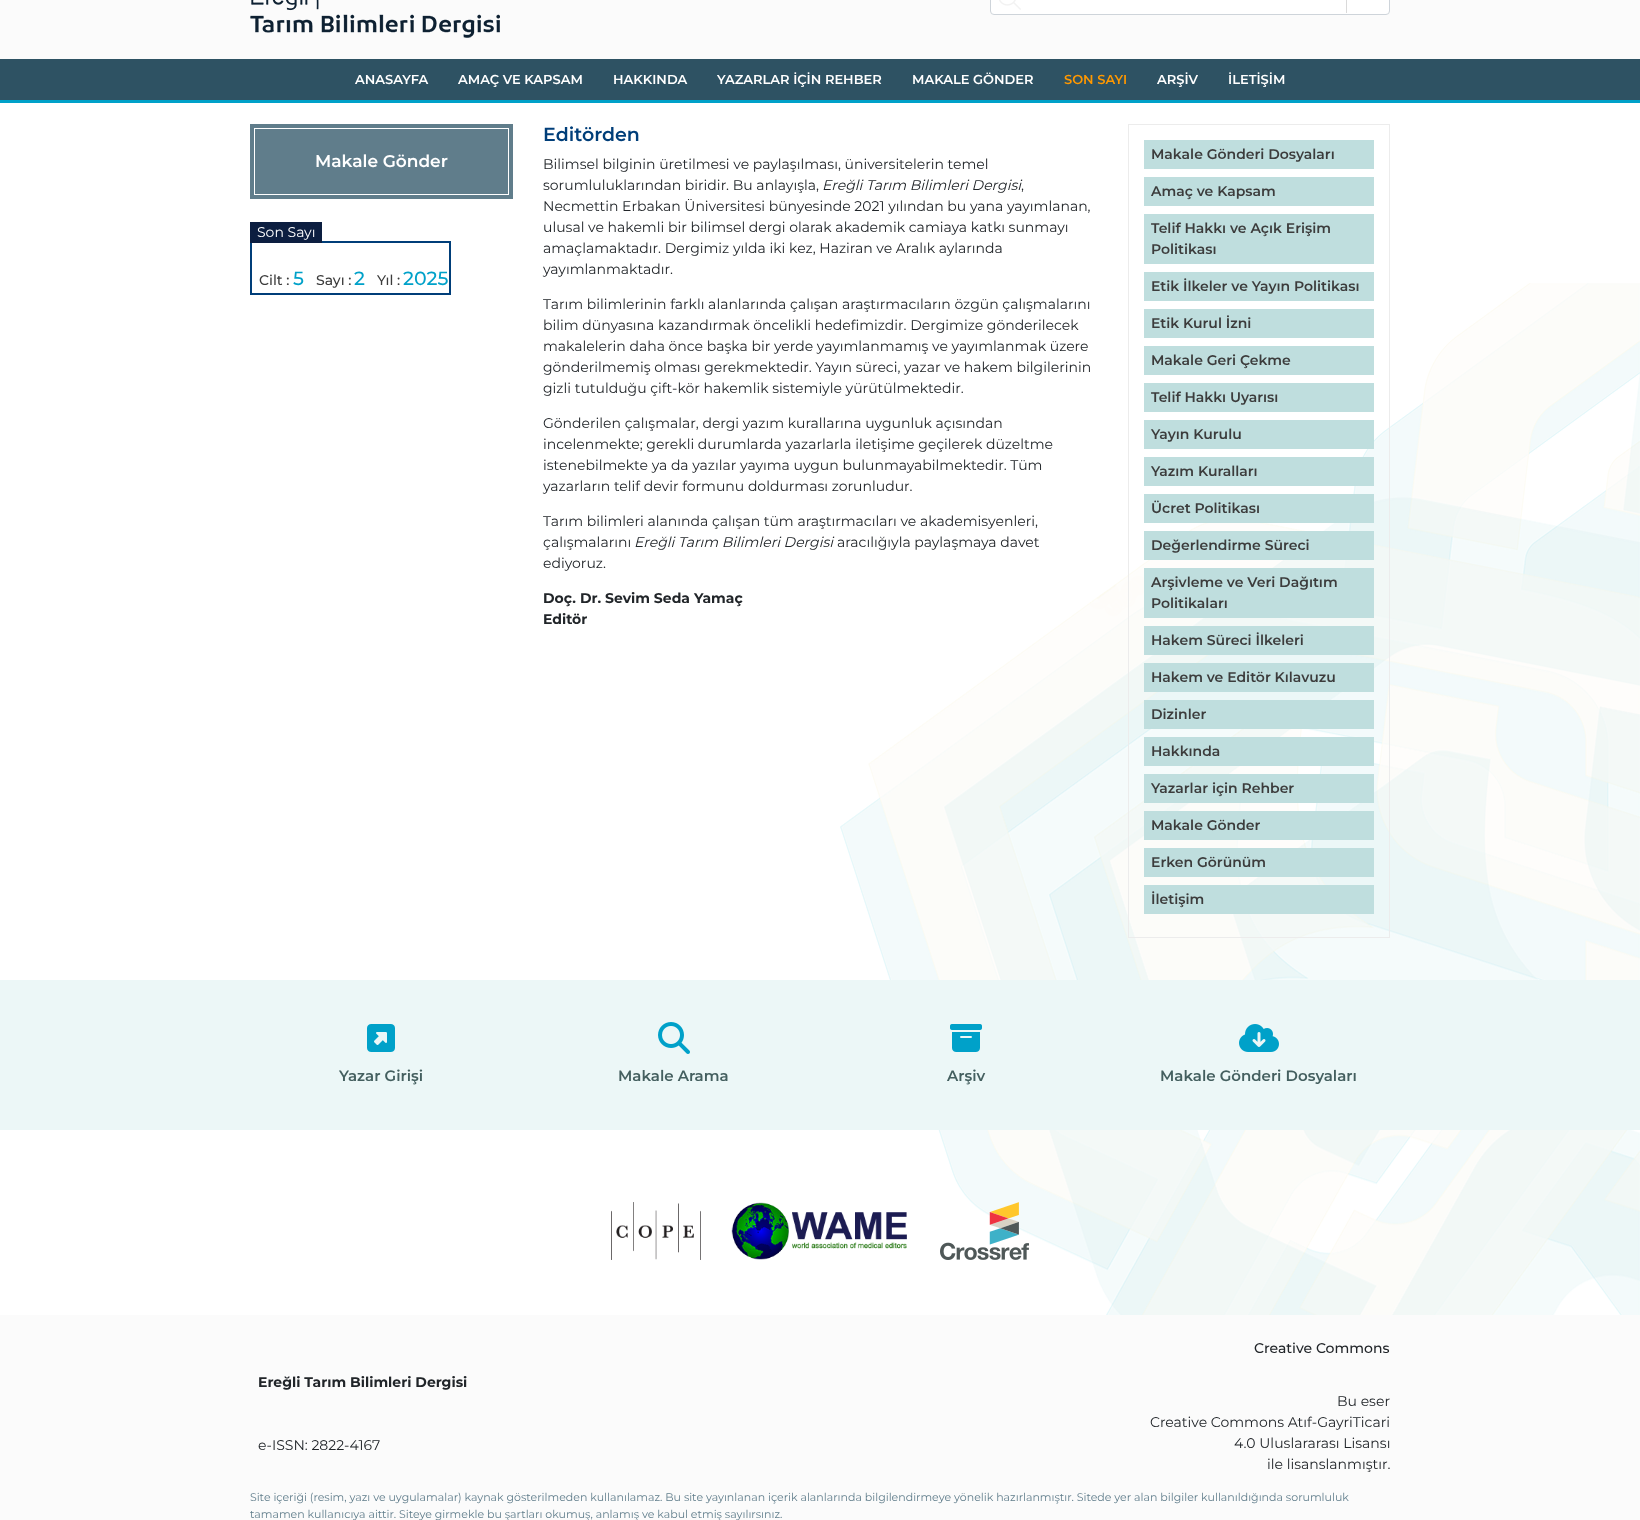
<svg xmlns="http://www.w3.org/2000/svg" width="1640" height="1520" viewBox="0 0 1640 1520">
  <rect width="100%" height="100%" fill="#ffffff"/>
  <image x="840" y="283" width="800" height="1032" href="img1.png"/>
  <rect x="0" y="0" width="1640" height="59" fill="#fbfbfb"/>
  <rect x="0" y="100" width="1640" height="3" fill="#00a1c9"/>
  <image x="250" y="0" width="250" height="38" href="img2.png"/>
  <rect x="991" y="-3" width="398" height="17" rx="2.5" fill="#ffffff"/>
  <image x="999" y="0" width="22" height="10" href="img3.png"/>
  <rect x="990.5" y="-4.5" width="399" height="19" rx="3.5" fill="none" stroke="#ced4da"/>
  <rect x="1346" y="0" width="1" height="13" fill="#dadada"/>
  <rect x="0" y="59" width="1640" height="41" fill="#2e5263"/>
  <text x="355" y="84" font-family="Montserrat" font-size="13" font-weight="600" fill="#ffffff">ANASAYFA</text>
  <text x="458" y="84" font-family="Montserrat" font-size="13" font-weight="600" fill="#ffffff">AMAÇ VE KAPSAM</text>
  <text x="613" y="84" font-family="Montserrat" font-size="13" font-weight="600" fill="#ffffff">HAKKINDA</text>
  <text x="717" y="84" font-family="Montserrat" font-size="13" font-weight="600" fill="#ffffff">YAZARLAR İÇİN REHBER</text>
  <text x="912" y="84" font-family="Montserrat" font-size="13" font-weight="600" fill="#ffffff">MAKALE GÖNDER</text>
  <text x="1064" y="84" font-family="Montserrat" font-size="13" font-weight="600" fill="#ff9800">SON SAYI</text>
  <text x="1157" y="84" font-family="Montserrat" font-size="13" font-weight="600" fill="#ffffff">ARŞİV</text>
  <text x="1228" y="84" font-family="Montserrat" font-size="13" font-weight="600" fill="#ffffff">İLETİŞİM</text>
  <rect x="250" y="124" width="263" height="75" fill="#607d8b"/>
  <rect x="254.5" y="128.5" width="254" height="66" fill="none" stroke="#ffffff"/>
  <text x="315" y="167" font-family="Montserrat" font-size="17" font-weight="600" fill="#ffffff">Makale Gönder</text>
  <rect x="251" y="242" width="199" height="52" fill="none" stroke="#003e79" stroke-width="2"/>
  <rect x="250" y="222" width="72" height="21" fill="#0c1e40"/>
  <text x="257" y="237" font-family="Montserrat" font-size="14" fill="#ffffff">Son Sayı</text>
  <text x="259" y="285" font-family="Montserrat" font-size="14" font-weight="500" fill="#3c3c3c">Cilt :</text>
  <text x="293" y="285" font-family="Montserrat" font-size="19" font-weight="500" fill="#00a1c9">5</text>
  <text x="316" y="285" font-family="Montserrat" font-size="14" font-weight="500" fill="#3c3c3c">Sayı :</text>
  <text x="354" y="285" font-family="Montserrat" font-size="19" font-weight="500" fill="#00a1c9">2</text>
  <text x="377" y="285" font-family="Montserrat" font-size="14" font-weight="500" fill="#3c3c3c">Yıl :</text>
  <text x="403" y="285" font-family="Montserrat" font-size="19" font-weight="500" fill="#00a1c9">2025</text>
  <text x="543" y="141" font-family="Montserrat" font-size="19" font-weight="600" fill="#003e79">Editörden</text>
  <text x="543" y="169" font-family="Montserrat" font-size="14" fill="#212529">Bilimsel bilginin üretilmesi ve paylaşılması, üniversitelerin temel</text>
  <text x="543" y="190" font-family="Montserrat" font-size="14" fill="#212529">sorumluluklarından biridir. Bu anlayışla,</text>
  <text x="822" y="190" font-family="Montserrat" font-size="14" font-style="italic" fill="#212529">Ereğli Tarım Bilimleri Dergisi</text>
  <text x="1021" y="190" font-family="Montserrat" font-size="14" fill="#212529">,</text>
  <text x="543" y="211" font-family="Montserrat" font-size="14" fill="#212529">Necmettin Erbakan Üniversitesi bünyesinde 2021 yılından bu yana yayımlanan,</text>
  <text x="543" y="232" font-family="Montserrat" font-size="14" fill="#212529">ulusal ve hakemli bir bilimsel dergi olarak akademik camiaya katkı sunmayı</text>
  <text x="543" y="253" font-family="Montserrat" font-size="14" fill="#212529">amaçlamaktadır. Dergimiz yılda iki kez, Haziran ve Aralık aylarında</text>
  <text x="543" y="274" font-family="Montserrat" font-size="14" fill="#212529">yayımlanmaktadır.</text>
  <text x="543" y="309" font-family="Montserrat" font-size="14" fill="#212529">Tarım bilimlerinin farklı alanlarında çalışan araştırmacıların özgün çalışmalarını</text>
  <text x="543" y="330" font-family="Montserrat" font-size="14" fill="#212529">bilim dünyasına kazandırmak öncelikli hedefimizdir. Dergimize gönderilecek</text>
  <text x="543" y="351" font-family="Montserrat" font-size="14" fill="#212529">makalelerin daha önce başka bir yerde yayımlanmamış ve yayımlanmak üzere</text>
  <text x="543" y="372" font-family="Montserrat" font-size="14" fill="#212529">gönderilmemiş olması gerekmektedir. Yayın süreci, yazar ve hakem bilgilerinin</text>
  <text x="543" y="393" font-family="Montserrat" font-size="14" fill="#212529">gizli tutulduğu çift-kör hakemlik sistemiyle yürütülmektedir.</text>
  <text x="543" y="428" font-family="Montserrat" font-size="14" fill="#212529">Gönderilen çalışmalar, dergi yazım kurallarına uygunluk açısından</text>
  <text x="543" y="449" font-family="Montserrat" font-size="14" fill="#212529">incelenmekte; gerekli durumlarda yazarlarla iletişime geçilerek düzeltme</text>
  <text x="543" y="470" font-family="Montserrat" font-size="14" fill="#212529">istenebilmekte ya da yazılar yayıma uygun bulunmayabilmektedir. Tüm</text>
  <text x="543" y="491" font-family="Montserrat" font-size="14" fill="#212529">yazarların telif devir formunu doldurması zorunludur.</text>
  <text x="543" y="526" font-family="Montserrat" font-size="14" fill="#212529">Tarım bilimleri alanında çalışan tüm araştırmacıları ve akademisyenleri,</text>
  <text x="543" y="547" font-family="Montserrat" font-size="14" fill="#212529">çalışmalarını</text>
  <text x="634" y="547" font-family="Montserrat" font-size="14" font-style="italic" fill="#212529">Ereğli Tarım Bilimleri Dergisi</text>
  <text x="837" y="547" font-family="Montserrat" font-size="14" fill="#212529">aracılığıyla paylaşmaya davet</text>
  <text x="543" y="568" font-family="Montserrat" font-size="14" fill="#212529">ediyoruz.</text>
  <text x="543" y="603" font-family="Montserrat" font-size="14" font-weight="bold" fill="#212529">Doç. Dr. Sevim Seda Yamaç</text>
  <text x="543" y="624" font-family="Montserrat" font-size="14" font-weight="bold" fill="#212529">Editör</text>
  <rect x="1128.5" y="124.5" width="261" height="813" fill="none" stroke="#ececec"/>
  <rect x="1144" y="140" width="230" height="29" fill="#bfdede"/>
  <text x="1151" y="159" font-family="Montserrat" font-size="14" font-weight="600" fill="#3c3c3c">Makale Gönderi Dosyaları</text>
  <rect x="1144" y="177" width="230" height="29" fill="#bfdede"/>
  <text x="1151" y="196" font-family="Montserrat" font-size="14" font-weight="600" fill="#3c3c3c">Amaç ve Kapsam</text>
  <rect x="1144" y="214" width="230" height="50" fill="#bfdede"/>
  <text x="1151" y="233" font-family="Montserrat" font-size="14" font-weight="600" fill="#3c3c3c">Telif Hakkı ve Açık Erişim</text>
  <text x="1151" y="254" font-family="Montserrat" font-size="14" font-weight="600" fill="#3c3c3c">Politikası</text>
  <rect x="1144" y="272" width="230" height="29" fill="#bfdede"/>
  <text x="1151" y="291" font-family="Montserrat" font-size="14" font-weight="600" fill="#3c3c3c">Etik İlkeler ve Yayın Politikası</text>
  <rect x="1144" y="309" width="230" height="29" fill="#bfdede"/>
  <text x="1151" y="328" font-family="Montserrat" font-size="14" font-weight="600" fill="#3c3c3c">Etik Kurul İzni</text>
  <rect x="1144" y="346" width="230" height="29" fill="#bfdede"/>
  <text x="1151" y="365" font-family="Montserrat" font-size="14" font-weight="600" fill="#3c3c3c">Makale Geri Çekme</text>
  <rect x="1144" y="383" width="230" height="29" fill="#bfdede"/>
  <text x="1151" y="402" font-family="Montserrat" font-size="14" font-weight="600" fill="#3c3c3c">Telif Hakkı Uyarısı</text>
  <rect x="1144" y="420" width="230" height="29" fill="#bfdede"/>
  <text x="1151" y="439" font-family="Montserrat" font-size="14" font-weight="600" fill="#3c3c3c">Yayın Kurulu</text>
  <rect x="1144" y="457" width="230" height="29" fill="#bfdede"/>
  <text x="1151" y="476" font-family="Montserrat" font-size="14" font-weight="600" fill="#3c3c3c">Yazım Kuralları</text>
  <rect x="1144" y="494" width="230" height="29" fill="#bfdede"/>
  <text x="1151" y="513" font-family="Montserrat" font-size="14" font-weight="600" fill="#3c3c3c">Ücret Politikası</text>
  <rect x="1144" y="531" width="230" height="29" fill="#bfdede"/>
  <text x="1151" y="550" font-family="Montserrat" font-size="14" font-weight="600" fill="#3c3c3c">Değerlendirme Süreci</text>
  <rect x="1144" y="568" width="230" height="50" fill="#bfdede"/>
  <text x="1151" y="587" font-family="Montserrat" font-size="14" font-weight="600" fill="#3c3c3c">Arşivleme ve Veri Dağıtım</text>
  <text x="1151" y="608" font-family="Montserrat" font-size="14" font-weight="600" fill="#3c3c3c">Politikaları</text>
  <rect x="1144" y="626" width="230" height="29" fill="#bfdede"/>
  <text x="1151" y="645" font-family="Montserrat" font-size="14" font-weight="600" fill="#3c3c3c">Hakem Süreci İlkeleri</text>
  <rect x="1144" y="663" width="230" height="29" fill="#bfdede"/>
  <text x="1151" y="682" font-family="Montserrat" font-size="14" font-weight="600" fill="#3c3c3c">Hakem ve Editör Kılavuzu</text>
  <rect x="1144" y="700" width="230" height="29" fill="#bfdede"/>
  <text x="1151" y="719" font-family="Montserrat" font-size="14" font-weight="600" fill="#3c3c3c">Dizinler</text>
  <rect x="1144" y="737" width="230" height="29" fill="#bfdede"/>
  <text x="1151" y="756" font-family="Montserrat" font-size="14" font-weight="600" fill="#3c3c3c">Hakkında</text>
  <rect x="1144" y="774" width="230" height="29" fill="#bfdede"/>
  <text x="1151" y="793" font-family="Montserrat" font-size="14" font-weight="600" fill="#3c3c3c">Yazarlar için Rehber</text>
  <rect x="1144" y="811" width="230" height="29" fill="#bfdede"/>
  <text x="1151" y="830" font-family="Montserrat" font-size="14" font-weight="600" fill="#3c3c3c">Makale Gönder</text>
  <rect x="1144" y="848" width="230" height="29" fill="#bfdede"/>
  <text x="1151" y="867" font-family="Montserrat" font-size="14" font-weight="600" fill="#3c3c3c">Erken Görünüm</text>
  <rect x="1144" y="885" width="230" height="29" fill="#bfdede"/>
  <text x="1151" y="904" font-family="Montserrat" font-size="14" font-weight="600" fill="#3c3c3c">İletişim</text>
  <rect x="0" y="980" width="1640" height="150" fill="#ecf7f7"/>
  <image x="367" y="1024" width="28" height="28" href="img4.png"/>
  <text x="339" y="1081" font-family="Montserrat" font-size="15" font-weight="600" fill="#445f5f">Yazar Girişi</text>
  <image x="658" y="1022" width="32" height="32" href="img5.png"/>
  <text x="618" y="1081" font-family="Montserrat" font-size="15" font-weight="600" fill="#445f5f">Makale Arama</text>
  <image x="950" y="1024" width="32" height="28" href="img6.png"/>
  <text x="947" y="1081" font-family="Montserrat" font-size="15" font-weight="600" fill="#445f5f">Arşiv</text>
  <image x="1239" y="1024" width="40" height="28" href="img7.png"/>
  <text x="1160" y="1081" font-family="Montserrat" font-size="15" font-weight="600" fill="#445f5f">Makale Gönderi Dosyaları</text>
  <image x="611" y="1202" width="90" height="58" href="img8.png"/>
  <image x="731" y="1202" width="176" height="58" href="img9.png"/>
  <image x="940" y="1202" width="89" height="58" href="img10.png"/>
  <rect x="0" y="1315" width="1640" height="205" fill="#fbfbfb"/>
  <text x="258" y="1387" font-family="Montserrat" font-size="14" font-weight="bold" fill="#212529">Ereğli Tarım Bilimleri Dergisi</text>
  <text x="258" y="1450" font-family="Montserrat" font-size="14" fill="#212529">e-ISSN: 2822-4167</text>
  <text x="1254" y="1353" font-family="Montserrat" font-size="14" font-weight="500" fill="#212529">Creative Commons</text>
  <text x="1337" y="1406" font-family="Montserrat" font-size="14" fill="#212529">Bu eser</text>
  <text x="1150" y="1427" font-family="Montserrat" font-size="14" fill="#212529">Creative Commons Atıf-GayriTicari</text>
  <text x="1234" y="1448" font-family="Montserrat" font-size="14" fill="#212529">4.0 Uluslararası Lisansı</text>
  <text x="1267" y="1469" font-family="Montserrat" font-size="14" fill="#212529">ile lisanslanmıştır.</text>
  <text x="250" y="1501" font-family="Montserrat" font-size="11" fill="#607d8b">Site içeriği (resim, yazı ve uygulamalar) kaynak gösterilmeden kullanılamaz. Bu site yayınlanan içerik alanlarında bilgilendirmeye yönelik hazırlanmıştır. Sitede yer alan bilgiler kullanıldığında sorumluluk</text>
  <text x="250" y="1518" font-family="Montserrat" font-size="11" fill="#607d8b">tamamen kullanıcıya aittir. Siteye girmekle bu şartları okumuş, anlamış ve kabul etmiş sayılırsınız.</text>
</svg>
